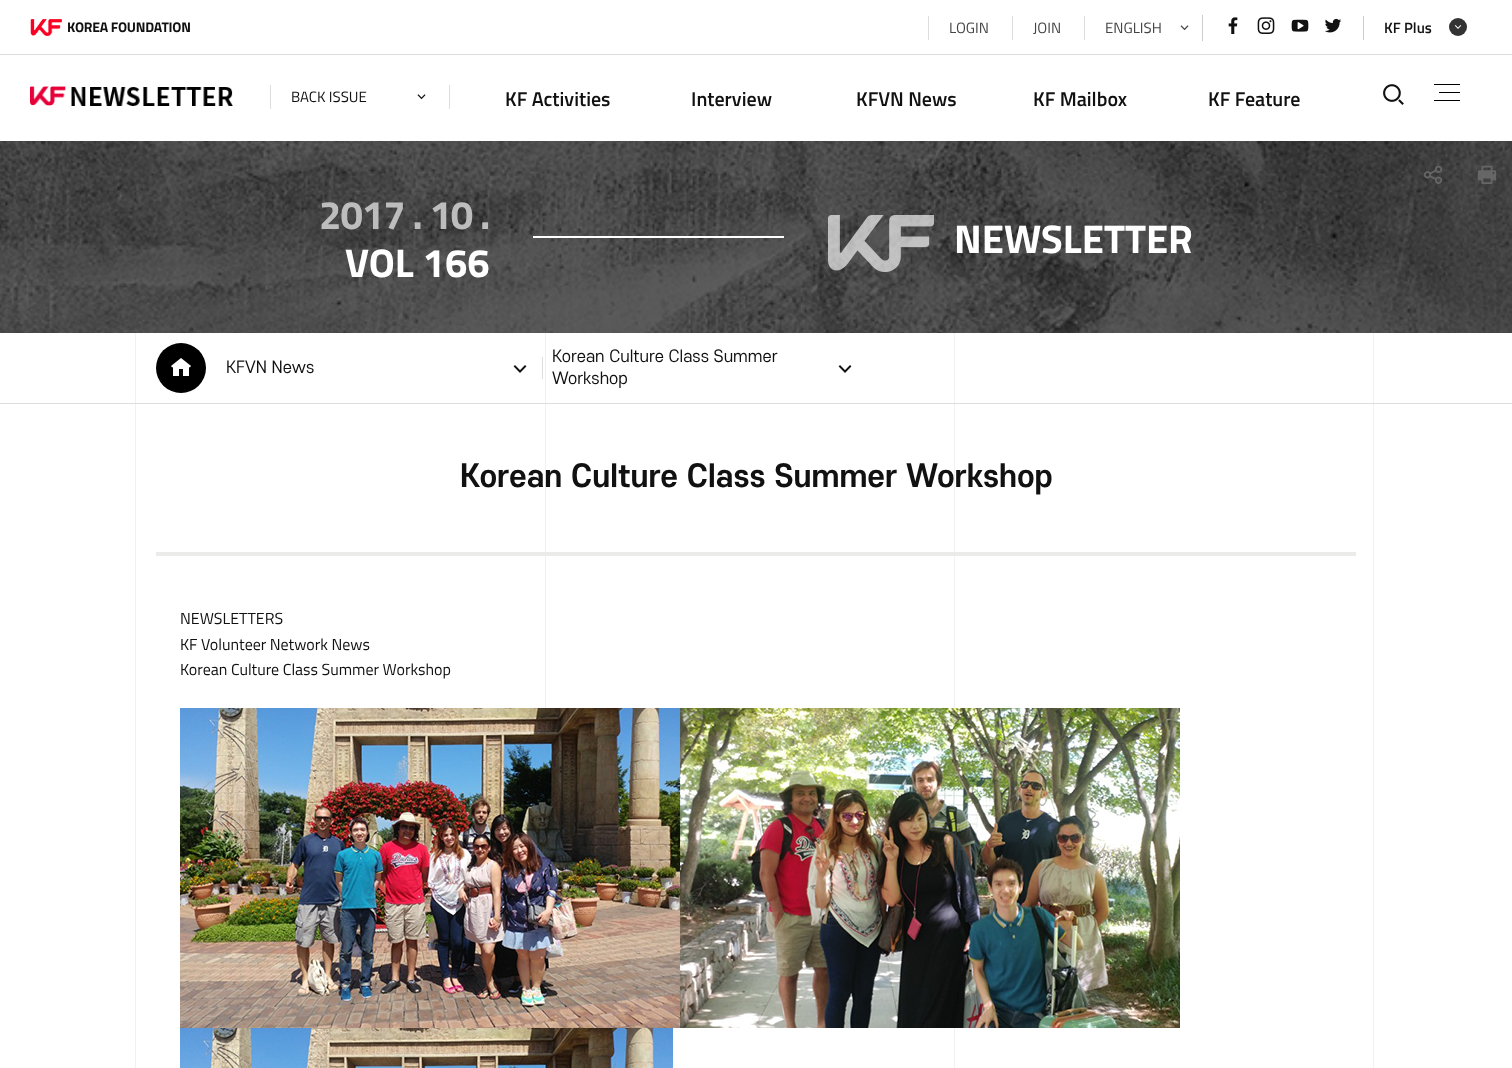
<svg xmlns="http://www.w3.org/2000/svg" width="1512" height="1068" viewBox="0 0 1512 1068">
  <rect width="100%" height="100%" fill="#ffffff"/>
  <image x="30" y="19" width="32" height="17" href="img1.png"/>
  <text x="67" y="32" font-family="Titillium Web" font-size="14" font-weight="bold" letter-spacing="-0.25" fill="#111111">KOREA FOUNDATION</text>
  <rect x="928" y="16" width="1" height="24" fill="#dddddd"/>
  <text x="949" y="33" font-family="Titillium Web" font-size="15" fill="#444444">LOGIN</text>
  <rect x="1012" y="16" width="1" height="24" fill="#dddddd"/>
  <text x="1033" y="33" font-family="Titillium Web" font-size="15" fill="#444444">JOIN</text>
  <rect x="1084" y="16" width="1" height="24" fill="#dddddd"/>
  <text x="1105" y="33" font-family="Titillium Web" font-size="15" fill="#444444">ENGLISH</text>
  <image x="1180" y="25" width="9" height="6" href="img2.png"/>
  <rect x="1202" y="15" width="1" height="26" fill="#cccccc"/>
  <image x="1228" y="17" width="10" height="17" href="img3.png"/>
  <image x="1257" y="17" width="18" height="17" href="img4.png"/>
  <image x="1291" y="19" width="18" height="13" href="img5.png"/>
  <image x="1325" y="18" width="17" height="15" href="img6.png"/>
  <rect x="1363" y="16" width="1" height="24" fill="#cccccc"/>
  <text x="1384" y="33" font-family="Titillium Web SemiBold" font-size="15" font-weight="600" fill="#111111">KF Plus</text>
  <circle cx="1458" cy="27" r="9" fill="#333333"/>
  <image x="1454" y="25" width="8" height="4" href="img7.png"/>
  <rect x="449" y="85" width="1" height="24" fill="#dddddd"/>
  <rect x="270" y="85" width="1" height="24" fill="#dddddd"/>
  <text x="291" y="102" font-family="Titillium Web" font-size="15" fill="#111111">BACK ISSUE</text>
  <image x="417" y="94" width="9" height="6" href="img8.png"/>
  <rect x="0" y="54" width="1512" height="1" fill="#dddddd"/>
  <image x="30" y="86" width="203" height="20" href="img9.png"/>
  <text x="505" y="106" font-family="Titillium Web SemiBold" font-size="20" font-weight="600" fill="#111111">KF Activities</text>
  <text x="691" y="106" font-family="Titillium Web SemiBold" font-size="20" font-weight="600" fill="#111111">Interview</text>
  <text x="856" y="106" font-family="Titillium Web SemiBold" font-size="20" font-weight="600" fill="#111111">KFVN News</text>
  <text x="1033" y="106" font-family="Titillium Web SemiBold" font-size="20" font-weight="600" fill="#111111">KF Mailbox</text>
  <text x="1208" y="106" font-family="Titillium Web SemiBold" font-size="20" font-weight="600" fill="#111111">KF Feature</text>
  <image x="1383" y="84" width="21" height="21" href="img10.png"/>
  <rect x="1434" y="84" width="26" height="1" fill="#000000"/>
  <rect x="1439" y="92" width="21" height="1" fill="#000000"/>
  <rect x="1434" y="100" width="26" height="1" fill="#000000"/>
  <image x="135" y="333" width="1239" height="735" href="img11.png"/>
  <image x="0" y="141" width="1512" height="192" href="img12.png"/>
  <text x="319" y="229" font-family="Titillium Web" font-size="40" font-weight="bold" letter-spacing="-1" fill="#bdbdbd">2017 . 10 .</text>
  <text x="345" y="277" font-family="Titillium Web" font-size="40" font-weight="bold" fill="#ffffff">VOL 166</text>
  <rect x="533" y="236" width="251" height="2" fill="#ffffff"/>
  <image x="828" y="215" width="106" height="57" href="img13.png"/>
  <text x="954" y="253" font-family="Titillium Web" font-size="40" font-weight="bold" fill="#ffffff">NEWSLETTER</text>
  <rect x="0" y="403" width="1512" height="1" fill="#dddddd"/>
  <image x="1424" y="165" width="19" height="19" href="img14.png"/>
  <image x="1477" y="165" width="20" height="19" href="img15.png"/>
  <circle cx="181" cy="368" r="25" fill="#000000"/>
  <image x="171" y="358" width="20" height="18" href="img16.png"/>
  <text x="226" y="373" font-family="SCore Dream" font-size="16" fill="#111111">KFVN News</text>
  <image x="513" y="365" width="14" height="8" href="img17.png"/>
  <rect x="542" y="357" width="1" height="22" fill="#dddddd"/>
  <text x="552" y="362" font-family="SCore Dream" font-size="16" fill="#111111">Korean Culture Class Summer</text>
  <image x="838" y="365" width="14" height="8" href="img17.png"/>
  <text x="552" y="384" font-family="SCore Dream" font-size="16" fill="#111111">Workshop</text>
  <rect x="156" y="552" width="1200" height="4" fill="#ebebea"/>
  <text x="460" y="487" font-family="SCore Dream" font-size="30" font-weight="bold" fill="#111111">Korean Culture Class Summer Workshop</text>
  <text x="180" y="624" font-family="Titillium Web" font-size="16" fill="#111111">NEWSLETTERS</text>
  <text x="180" y="650" font-family="Titillium Web" font-size="16" fill="#111111">KF Volunteer Network News</text>
  <text x="180" y="675" font-family="Titillium Web" font-size="16" fill="#111111">Korean Culture Class Summer Workshop</text>
  <image x="180" y="708" width="1000" height="320" href="img18.png"/>
  <image x="180" y="1028" width="493" height="40" href="img19.png"/>
</svg>
